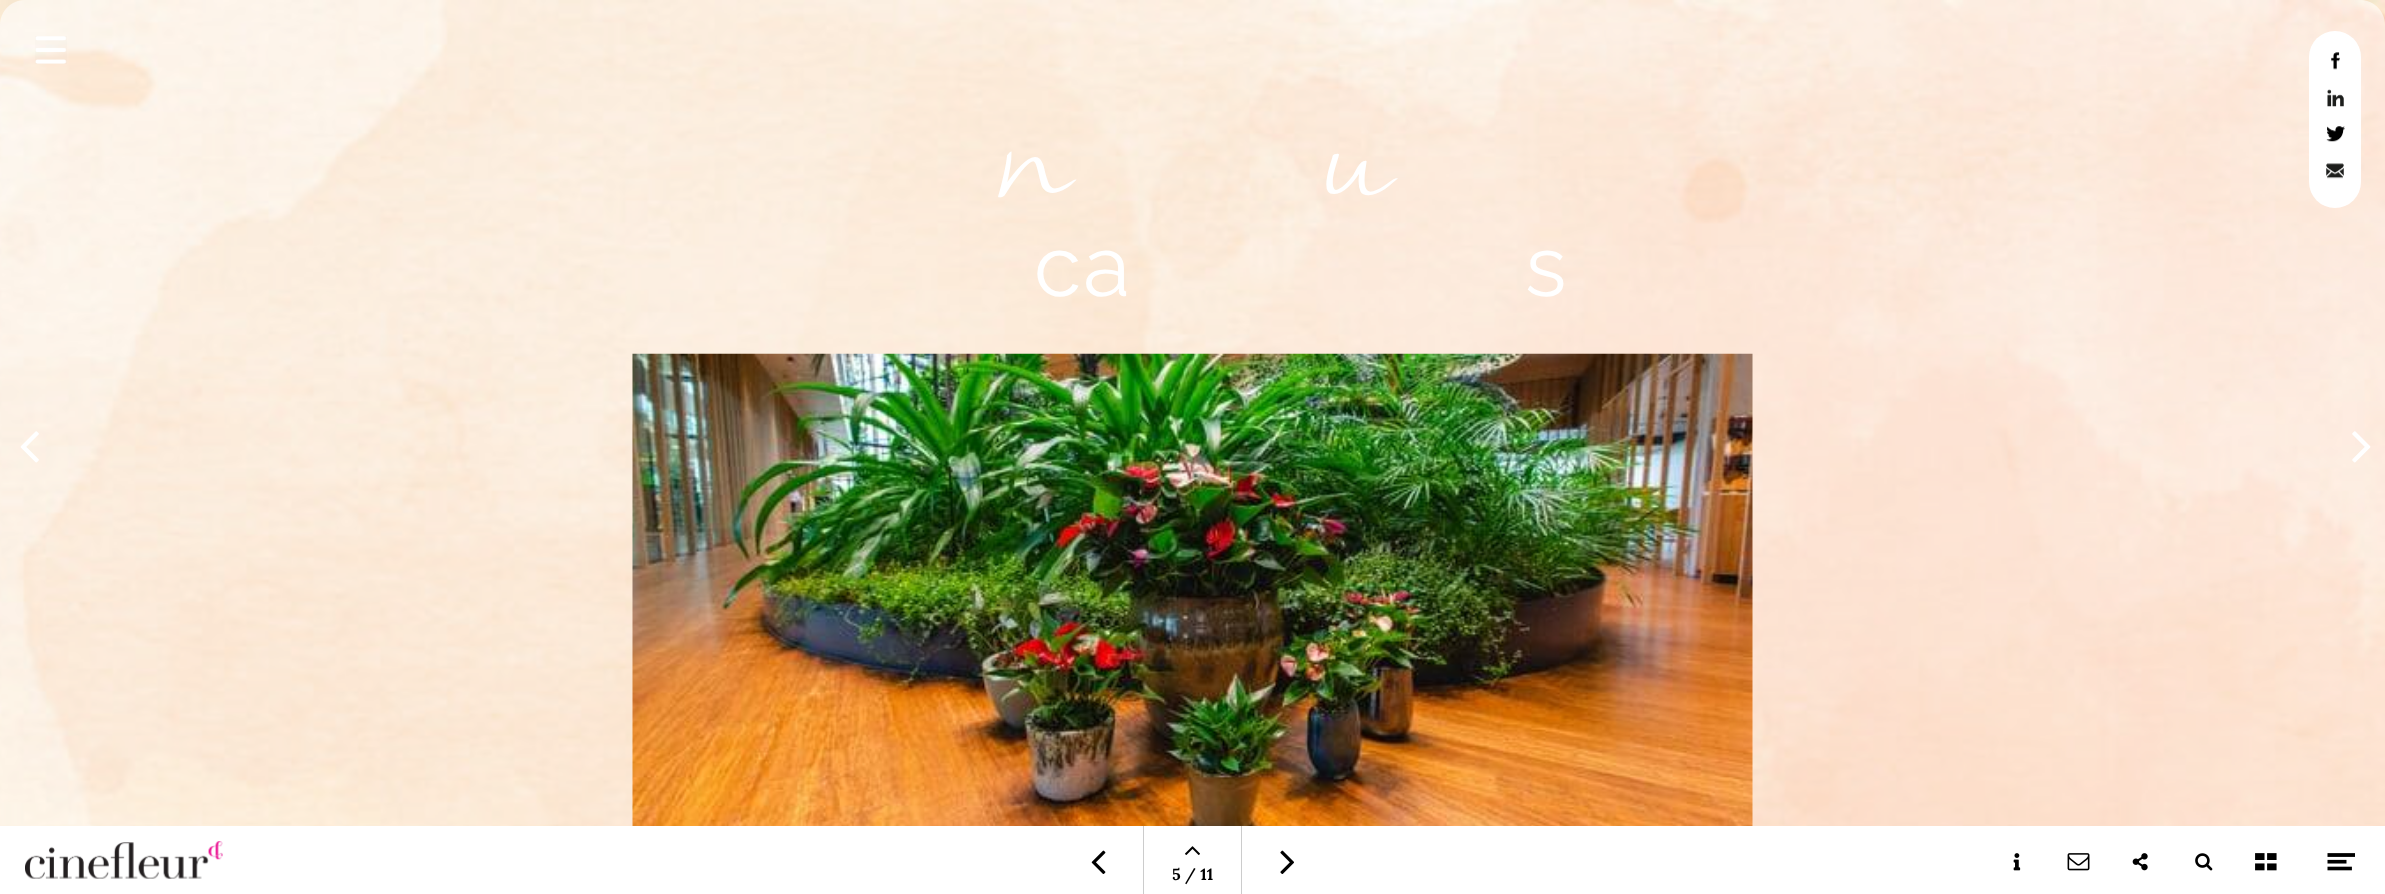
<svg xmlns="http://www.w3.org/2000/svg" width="2385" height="894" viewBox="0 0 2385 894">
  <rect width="100%" height="100%" fill="#ffffff"/>
  <image x="0" y="0" width="2385" height="826" href="img6.png"/>
  <image x="35" y="36" width="32" height="28" href="img1.png"/>
  <rect x="2309" y="31" width="52" height="177" rx="26" fill="#ffffff"/>
  <image x="2331" y="52" width="9" height="18" href="img2.png"/>
  <image x="2327" y="89" width="17" height="18" href="img3.png"/>
  <image x="2326" y="126" width="19" height="16" href="img4.png"/>
  <image x="2326" y="163" width="18" height="16" href="img5.png"/>
  <text x="998" y="194" font-family="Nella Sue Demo" font-size="125" fill="#ffffff">n</text>
  <text x="1326" y="194" font-family="Nella Sue Demo" font-size="125" fill="#ffffff">u</text>
  <text x="1034" y="296" font-family="Raleway" font-size="86" letter-spacing="2" fill="#ffffff">ca</text>
  <text x="1525" y="296" font-family="Raleway" font-size="86" letter-spacing="2" fill="#ffffff">s</text>
  <image x="632" y="353" width="1121" height="473" href="img7.png"/>
  <image x="20" y="431" width="19" height="32" href="img8.png"/>
  <image x="2352" y="431" width="19" height="32" href="img9.png"/>
  <image x="25" y="841" width="198" height="38" href="img10.png"/>
  <image x="2013" y="853" width="8" height="18" href="img11.png"/>
  <image x="2067" y="853" width="23" height="18" href="img12.png"/>
  <image x="2132" y="853" width="16" height="18" href="img13.png"/>
  <image x="2195" y="853" width="18" height="18" href="img14.png"/>
  <image x="2255" y="853" width="22" height="18" href="img15.png"/>
  <image x="2327" y="853" width="28" height="18" href="img16.png"/>
  <image x="1091" y="850" width="15" height="24" href="img17.png"/>
  <rect x="1143" y="826" width="1" height="68" fill="#cccccc"/>
  <rect x="1241" y="826" width="1" height="68" fill="#cccccc"/>
  <image x="1280" y="850" width="14" height="24" href="img18.png"/>
  <image x="1185" y="846" width="15" height="9" href="img19.png"/>
  <text x="1172" y="880" font-family="Lora" font-size="16" font-weight="bold" fill="#000000">5 / 11</text>
</svg>
